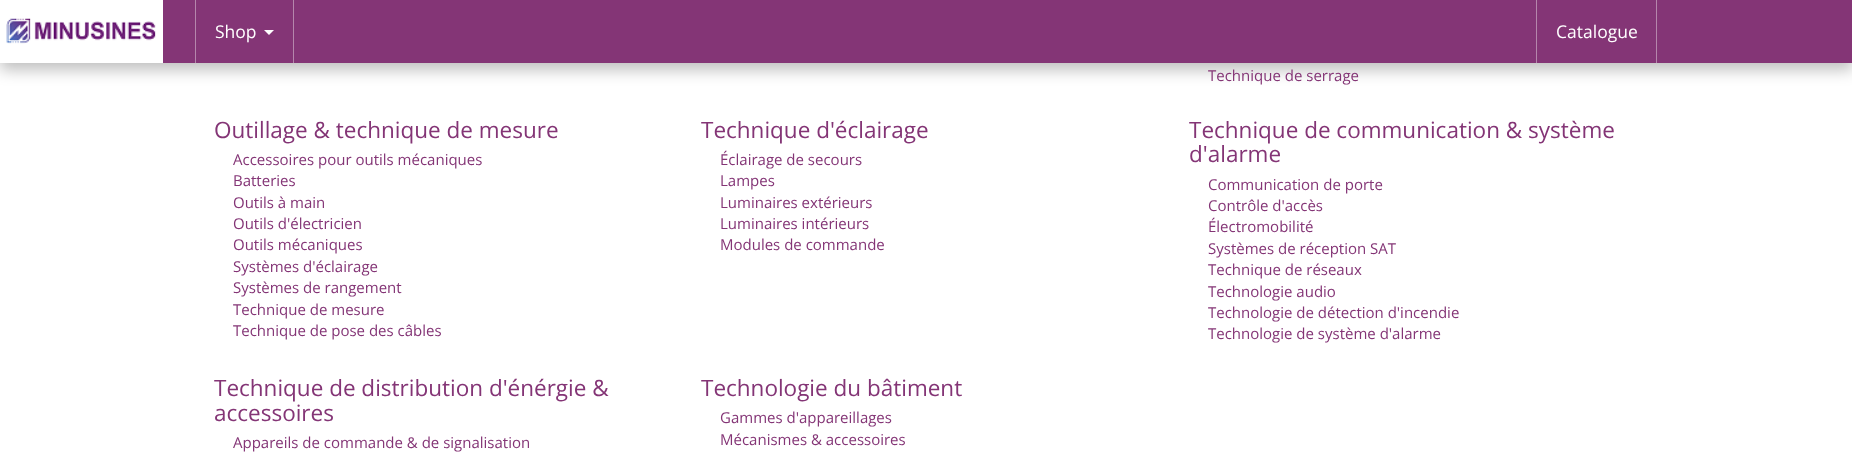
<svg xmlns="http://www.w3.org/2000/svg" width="1852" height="461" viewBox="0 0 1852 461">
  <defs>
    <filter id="blur1" x="-50%" y="-200%" width="200%" height="500%"><feGaussianBlur stdDeviation="7.5"/></filter>
  </defs>
  <rect width="100%" height="100%" fill="#ffffff"/>
  <rect x="0" y="8" width="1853" height="62" fill="#000000" fill-opacity="0.25" filter="url(#blur1)"/>
  <rect x="163" y="0" width="1689" height="63" fill="#843576"/>
  <rect x="0" y="0" width="163" height="63" fill="#ffffff"/>
  <image x="6" y="18" width="150" height="26" href="img1.png"/>
  <rect x="293" y="0" width="1" height="63" fill="#b586ac"/>
  <rect x="195" y="0" width="1" height="63" fill="#b586ac"/>
  <text x="215" y="38" font-family="Open Sans" font-size="17.5" fill="#ffffff">Shop</text>
  <path d="M264 30H274L269 35Z" fill="#ffffff"/>
  <rect x="1656" y="0" width="1" height="63" fill="#b586ac"/>
  <rect x="1536" y="0" width="1" height="63" fill="#b586ac"/>
  <text x="1556" y="38" font-family="Open Sans" font-size="17.5" fill="#ffffff">Catalogue</text>
  <text x="1208" y="81" font-family="Open Sans" font-size="15" fill="#843576">Technique de serrage</text>
  <text x="214" y="138" font-family="Open Sans" font-size="22.5" fill="#843576">Outillage &amp; technique de mesure</text>
  <text x="233" y="165" font-family="Open Sans" font-size="15" fill="#843576">Accessoires pour outils mécaniques</text>
  <text x="233" y="186" font-family="Open Sans" font-size="15" fill="#843576">Batteries</text>
  <text x="233" y="208" font-family="Open Sans" font-size="15" fill="#843576">Outils à main</text>
  <text x="233" y="229" font-family="Open Sans" font-size="15" fill="#843576">Outils d'électricien</text>
  <text x="233" y="250" font-family="Open Sans" font-size="15" fill="#843576">Outils mécaniques</text>
  <text x="233" y="272" font-family="Open Sans" font-size="15" fill="#843576">Systèmes d'éclairage</text>
  <text x="233" y="293" font-family="Open Sans" font-size="15" fill="#843576">Systèmes de rangement</text>
  <text x="233" y="315" font-family="Open Sans" font-size="15" fill="#843576">Technique de mesure</text>
  <text x="233" y="336" font-family="Open Sans" font-size="15" fill="#843576">Technique de pose des câbles</text>
  <text x="701" y="138" font-family="Open Sans" font-size="22.5" fill="#843576">Technique d'éclairage</text>
  <text x="720" y="165" font-family="Open Sans" font-size="15" fill="#843576">Éclairage de secours</text>
  <text x="720" y="186" font-family="Open Sans" font-size="15" fill="#843576">Lampes</text>
  <text x="720" y="208" font-family="Open Sans" font-size="15" fill="#843576">Luminaires extérieurs</text>
  <text x="720" y="229" font-family="Open Sans" font-size="15" fill="#843576">Luminaires intérieurs</text>
  <text x="720" y="250" font-family="Open Sans" font-size="15" fill="#843576">Modules de commande</text>
  <text x="1189" y="138" font-family="Open Sans" font-size="22.5" fill="#843576">Technique de communication &amp; système</text>
  <text x="1189" y="162" font-family="Open Sans" font-size="22.5" fill="#843576">d'alarme</text>
  <text x="1208" y="190" font-family="Open Sans" font-size="15" fill="#843576">Communication de porte</text>
  <text x="1208" y="211" font-family="Open Sans" font-size="15" fill="#843576">Contrôle d'accès</text>
  <text x="1208" y="232" font-family="Open Sans" font-size="15" fill="#843576">Électromobilité</text>
  <text x="1208" y="254" font-family="Open Sans" font-size="15" fill="#843576">Systèmes de réception SAT</text>
  <text x="1208" y="275" font-family="Open Sans" font-size="15" fill="#843576">Technique de réseaux</text>
  <text x="1208" y="297" font-family="Open Sans" font-size="15" fill="#843576">Technologie audio</text>
  <text x="1208" y="318" font-family="Open Sans" font-size="15" fill="#843576">Technologie de détection d'incendie</text>
  <text x="1208" y="339" font-family="Open Sans" font-size="15" fill="#843576">Technologie de système d'alarme</text>
  <text x="214" y="396" font-family="Open Sans" font-size="22.5" fill="#843576">Technique de distribution d'énérgie &amp;</text>
  <text x="214" y="421" font-family="Open Sans" font-size="22.5" fill="#843576">accessoires</text>
  <text x="233" y="448" font-family="Open Sans" font-size="15" fill="#843576">Appareils de commande &amp; de signalisation</text>
  <text x="701" y="396" font-family="Open Sans" font-size="22.5" fill="#843576">Technologie du bâtiment</text>
  <text x="720" y="423" font-family="Open Sans" font-size="15" fill="#843576">Gammes d'appareillages</text>
  <text x="720" y="445" font-family="Open Sans" font-size="15" fill="#843576">Mécanismes &amp; accessoires</text>
</svg>
